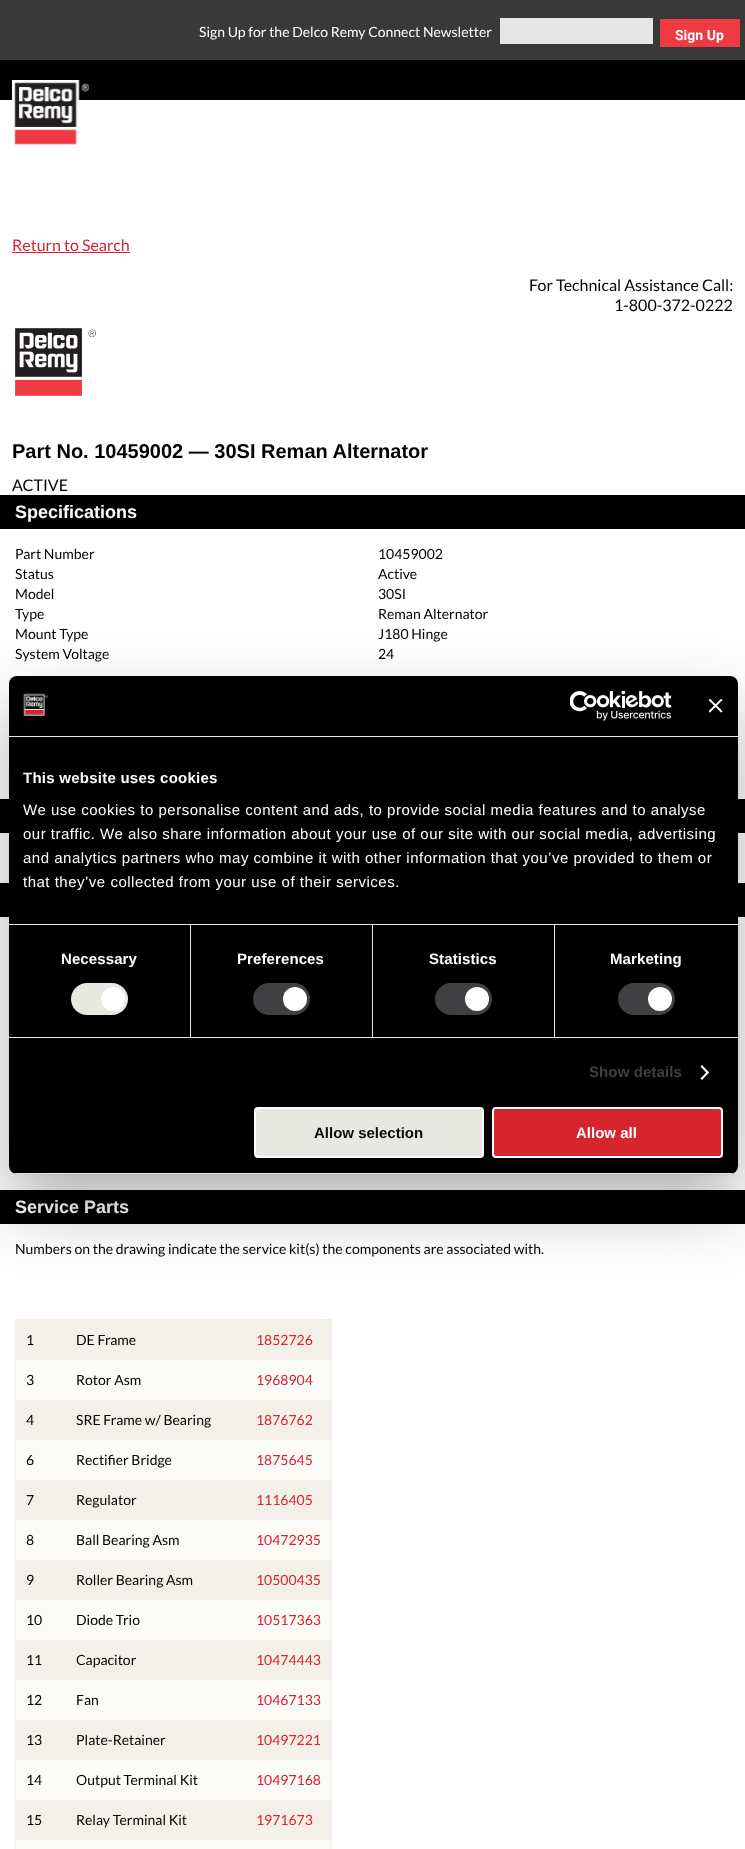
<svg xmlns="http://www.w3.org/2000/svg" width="745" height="1849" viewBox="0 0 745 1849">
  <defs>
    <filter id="blur1" x="-50%" y="-200%" width="200%" height="500%"><feGaussianBlur stdDeviation="34"/></filter>
    <clipPath id="clip1"><rect x="9" y="676" width="729" height="498" rx="8"/></clipPath>
  </defs>
  <rect width="100%" height="100%" fill="#ffffff"/>
  <rect x="0" y="60" width="745" height="40" fill="#000000"/>
  <rect x="0" y="0" width="745" height="60" fill="#393939"/>
  <text x="199" y="37" font-family="Lato" font-size="14" fill="#ffffff">Sign Up for the Delco Remy Connect Newsletter</text>
  <rect x="500" y="18" width="153" height="26" fill="#e6e6e6"/>
  <rect x="660" y="19" width="80" height="28" fill="#ee3a43"/>
  <text x="675" y="40" font-family="Roboto" font-size="14" font-weight="bold" fill="#ffffff">Sign Up</text>
  <image x="12" y="80" width="77" height="65" href="img1.png"/>
  <text x="12" y="251" font-family="Lato" font-size="16" fill="#d7242f">Return to Search</text>
  <rect x="12" y="252" width="118" height="1" fill="#d7242f"/>
  <text x="529" y="291" font-family="Lato" font-size="16" fill="#000000">For Technical Assistance Call:</text>
  <text x="614" y="311" font-family="Lato" font-size="16" fill="#000000">1-800-372-0222</text>
  <image x="15" y="328" width="81" height="68" href="img2.png"/>
  <text x="12" y="458" font-family="Liberation Sans" font-size="20" font-weight="bold" fill="#000000">Part No. 10459002 — 30SI Reman Alternator</text>
  <text x="12" y="491" font-family="Lato" font-size="16" fill="#000000">ACTIVE</text>
  <rect x="0" y="495" width="745" height="34" fill="#000000"/>
  <text x="15" y="518" font-family="Liberation Sans" font-size="18" font-weight="bold" fill="#ffffff">Specifications</text>
  <text x="15" y="559" font-family="Lato" font-size="14" fill="#000000">Part Number</text>
  <text x="378" y="559" font-family="Lato" font-size="14" fill="#000000">10459002</text>
  <text x="15" y="579" font-family="Lato" font-size="14" fill="#000000">Status</text>
  <text x="378" y="579" font-family="Lato" font-size="14" fill="#000000">Active</text>
  <text x="15" y="599" font-family="Lato" font-size="14" fill="#000000">Model</text>
  <text x="378" y="599" font-family="Lato" font-size="14" fill="#000000">30SI</text>
  <text x="15" y="619" font-family="Lato" font-size="14" fill="#000000">Type</text>
  <text x="378" y="619" font-family="Lato" font-size="14" fill="#000000">Reman Alternator</text>
  <text x="15" y="639" font-family="Lato" font-size="14" fill="#000000">Mount Type</text>
  <text x="378" y="639" font-family="Lato" font-size="14" fill="#000000">J180 Hinge</text>
  <text x="15" y="659" font-family="Lato" font-size="14" fill="#000000">System Voltage</text>
  <text x="378" y="659" font-family="Lato" font-size="14" fill="#000000">24</text>
  <rect x="0" y="799" width="745" height="34" fill="#000000"/>
  <rect x="0" y="883" width="745" height="34" fill="#000000"/>
  <rect x="15.5" y="932.5" width="714" height="242" fill="none" stroke="#f2f0e8"/>
  <rect x="0" y="1190" width="745" height="34" fill="#000000"/>
  <text x="15" y="1213" font-family="Liberation Sans" font-size="18" font-weight="bold" fill="#ffffff">Service Parts</text>
  <text x="15" y="1254" font-family="Lato" font-size="14" fill="#000000">Numbers on the drawing indicate the service kit(s) the components are associated with.</text>
  <rect x="15.5" y="1319.5" width="316" height="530" fill="none" stroke="#f2f0e8"/>
  <rect x="16" y="1320" width="315" height="40" fill="#f2f0e8"/>
  <text x="26" y="1345" font-family="Lato" font-size="14" fill="#000000">1</text>
  <text x="76" y="1345" font-family="Lato" font-size="14" fill="#000000">DE Frame</text>
  <text x="256" y="1345" font-family="Lato" font-size="14" fill="#d7242f">1852726</text>
  <rect x="16" y="1360" width="315" height="40" fill="#fbfbf8"/>
  <text x="26" y="1385" font-family="Lato" font-size="14" fill="#000000">3</text>
  <text x="76" y="1385" font-family="Lato" font-size="14" fill="#000000">Rotor Asm</text>
  <text x="256" y="1385" font-family="Lato" font-size="14" fill="#d7242f">1968904</text>
  <rect x="16" y="1400" width="315" height="40" fill="#f2f0e8"/>
  <text x="26" y="1425" font-family="Lato" font-size="14" fill="#000000">4</text>
  <text x="76" y="1425" font-family="Lato" font-size="14" fill="#000000">SRE Frame w/ Bearing</text>
  <text x="256" y="1425" font-family="Lato" font-size="14" fill="#d7242f">1876762</text>
  <rect x="16" y="1440" width="315" height="40" fill="#fbfbf8"/>
  <text x="26" y="1465" font-family="Lato" font-size="14" fill="#000000">6</text>
  <text x="76" y="1465" font-family="Lato" font-size="14" fill="#000000">Rectifier Bridge</text>
  <text x="256" y="1465" font-family="Lato" font-size="14" fill="#d7242f">1875645</text>
  <rect x="16" y="1480" width="315" height="40" fill="#f2f0e8"/>
  <text x="26" y="1505" font-family="Lato" font-size="14" fill="#000000">7</text>
  <text x="76" y="1505" font-family="Lato" font-size="14" fill="#000000">Regulator</text>
  <text x="256" y="1505" font-family="Lato" font-size="14" fill="#d7242f">1116405</text>
  <rect x="16" y="1520" width="315" height="40" fill="#fbfbf8"/>
  <text x="26" y="1545" font-family="Lato" font-size="14" fill="#000000">8</text>
  <text x="76" y="1545" font-family="Lato" font-size="14" fill="#000000">Ball Bearing Asm</text>
  <text x="256" y="1545" font-family="Lato" font-size="14" fill="#d7242f">10472935</text>
  <rect x="16" y="1560" width="315" height="40" fill="#f2f0e8"/>
  <text x="26" y="1585" font-family="Lato" font-size="14" fill="#000000">9</text>
  <text x="76" y="1585" font-family="Lato" font-size="14" fill="#000000">Roller Bearing Asm</text>
  <text x="256" y="1585" font-family="Lato" font-size="14" fill="#d7242f">10500435</text>
  <rect x="16" y="1600" width="315" height="40" fill="#fbfbf8"/>
  <text x="26" y="1625" font-family="Lato" font-size="14" fill="#000000">10</text>
  <text x="76" y="1625" font-family="Lato" font-size="14" fill="#000000">Diode Trio</text>
  <text x="256" y="1625" font-family="Lato" font-size="14" fill="#d7242f">10517363</text>
  <rect x="16" y="1640" width="315" height="40" fill="#f2f0e8"/>
  <text x="26" y="1665" font-family="Lato" font-size="14" fill="#000000">11</text>
  <text x="76" y="1665" font-family="Lato" font-size="14" fill="#000000">Capacitor</text>
  <text x="256" y="1665" font-family="Lato" font-size="14" fill="#d7242f">10474443</text>
  <rect x="16" y="1680" width="315" height="40" fill="#fbfbf8"/>
  <text x="26" y="1705" font-family="Lato" font-size="14" fill="#000000">12</text>
  <text x="76" y="1705" font-family="Lato" font-size="14" fill="#000000">Fan</text>
  <text x="256" y="1705" font-family="Lato" font-size="14" fill="#d7242f">10467133</text>
  <rect x="16" y="1720" width="315" height="40" fill="#f2f0e8"/>
  <text x="26" y="1745" font-family="Lato" font-size="14" fill="#000000">13</text>
  <text x="76" y="1745" font-family="Lato" font-size="14" fill="#000000">Plate-Retainer</text>
  <text x="256" y="1745" font-family="Lato" font-size="14" fill="#d7242f">10497221</text>
  <rect x="16" y="1760" width="315" height="40" fill="#fbfbf8"/>
  <text x="26" y="1785" font-family="Lato" font-size="14" fill="#000000">14</text>
  <text x="76" y="1785" font-family="Lato" font-size="14" fill="#000000">Output Terminal Kit</text>
  <text x="256" y="1785" font-family="Lato" font-size="14" fill="#d7242f">10497168</text>
  <rect x="16" y="1800" width="315" height="40" fill="#f2f0e8"/>
  <text x="26" y="1825" font-family="Lato" font-size="14" fill="#000000">15</text>
  <text x="76" y="1825" font-family="Lato" font-size="14" fill="#000000">Relay Terminal Kit</text>
  <text x="256" y="1825" font-family="Lato" font-size="14" fill="#d7242f">1971673</text>
  <rect x="16" y="1840" width="315" height="9" fill="#fbfbf8"/>
  <rect x="9" y="708" width="729" height="498" rx="8" fill="#000000" fill-opacity="0.3" filter="url(#blur1)"/>
  <rect x="9" y="676" width="729" height="498" rx="8" fill="#000000"/>
  <rect x="9" y="736" width="729" height="1" fill="#e8e8e3"/>
  <image x="23" y="693" width="25" height="23" href="img3.png"/>
  <image x="570" y="691" width="102" height="30" href="img4.png"/>
  <image x="709" y="699" width="14" height="14" href="img5.png"/>
  <rect x="9" y="924" width="729" height="1" fill="#e8e8e3"/>
  <text x="23" y="783" font-family="Liberation Sans" font-size="15" font-weight="bold" letter-spacing="0.25" fill="#ffffff">This website uses cookies</text>
  <text x="23" y="815" font-family="Liberation Sans" font-size="15" letter-spacing="0.5" fill="#ffffff">We use cookies to personalise content and ads, to provide social media features and to analyse</text>
  <text x="23" y="839" font-family="Liberation Sans" font-size="15" letter-spacing="0.5" fill="#ffffff">our traffic. We also share information about your use of our site with our social media, advertising</text>
  <text x="23" y="863" font-family="Liberation Sans" font-size="15" letter-spacing="0.5" fill="#ffffff">and analytics partners who may combine it with other information that you’ve provided to them or</text>
  <text x="23" y="887" font-family="Liberation Sans" font-size="15" letter-spacing="0.5" fill="#ffffff">that they’ve collected from your use of their services.</text>
  <rect x="9" y="1037" width="729" height="1" fill="#e8e8e3"/>
  <rect x="190" y="925" width="1" height="112" fill="#e8e8e3"/>
  <text x="61" y="964" font-family="Liberation Sans" font-size="15" font-weight="bold" letter-spacing="0.1" fill="#ffffff">Necessary</text>
  <rect x="71" y="983" width="57" height="32" rx="16" fill="#e8e8e3"/>
  <circle cx="113" cy="999" r="12" fill="#ffffff"/>
  <rect x="372" y="925" width="1" height="112" fill="#e8e8e3"/>
  <text x="237" y="964" font-family="Liberation Sans" font-size="15" font-weight="bold" letter-spacing="0.1" fill="#ffffff">Preferences</text>
  <rect x="253" y="983" width="57" height="32" rx="16" fill="#404042"/>
  <circle cx="295" cy="999" r="12" fill="#ffffff"/>
  <rect x="554" y="925" width="1" height="112" fill="#e8e8e3"/>
  <text x="429" y="964" font-family="Liberation Sans" font-size="15" font-weight="bold" letter-spacing="0.1" fill="#ffffff">Statistics</text>
  <rect x="435" y="983" width="57" height="32" rx="16" fill="#404042"/>
  <circle cx="477" cy="999" r="12" fill="#ffffff"/>
  <text x="610" y="964" font-family="Liberation Sans" font-size="15" font-weight="bold" letter-spacing="0.1" fill="#ffffff">Marketing</text>
  <rect x="618" y="983" width="57" height="32" rx="16" fill="#404042"/>
  <circle cx="660" cy="999" r="12" fill="#ffffff"/>
  <text x="589" y="1077" font-family="Liberation Sans" font-size="15" font-weight="bold" letter-spacing="0.1" fill="#404042">Show details</text>
  <path d="M702 1065L709 1072.5L707.5 1074L700.5 1066.5Z" fill="#ffffff"/>
  <path d="M707.5 1071L709 1072.5L702 1080L700.5 1078.5Z" fill="#ffffff"/>
  <g clip-path="url(#clip1)">
    <rect x="9" y="1173" width="729" height="1" fill="#e8e8e3"/>
  </g>
  <rect x="255" y="1108" width="228" height="49" rx="3" fill="#e8e8e3" stroke="#ffffff" stroke-width="2"/>
  <text x="314" y="1138" font-family="Liberation Sans" font-size="15" font-weight="bold" fill="#090909">Allow selection</text>
  <rect x="493" y="1108" width="229" height="49" rx="3" fill="#d7242f" stroke="#ffffff" stroke-width="2"/>
  <text x="576" y="1138" font-family="Liberation Sans" font-size="15" font-weight="bold" fill="#ffffff">Allow all</text>
</svg>
